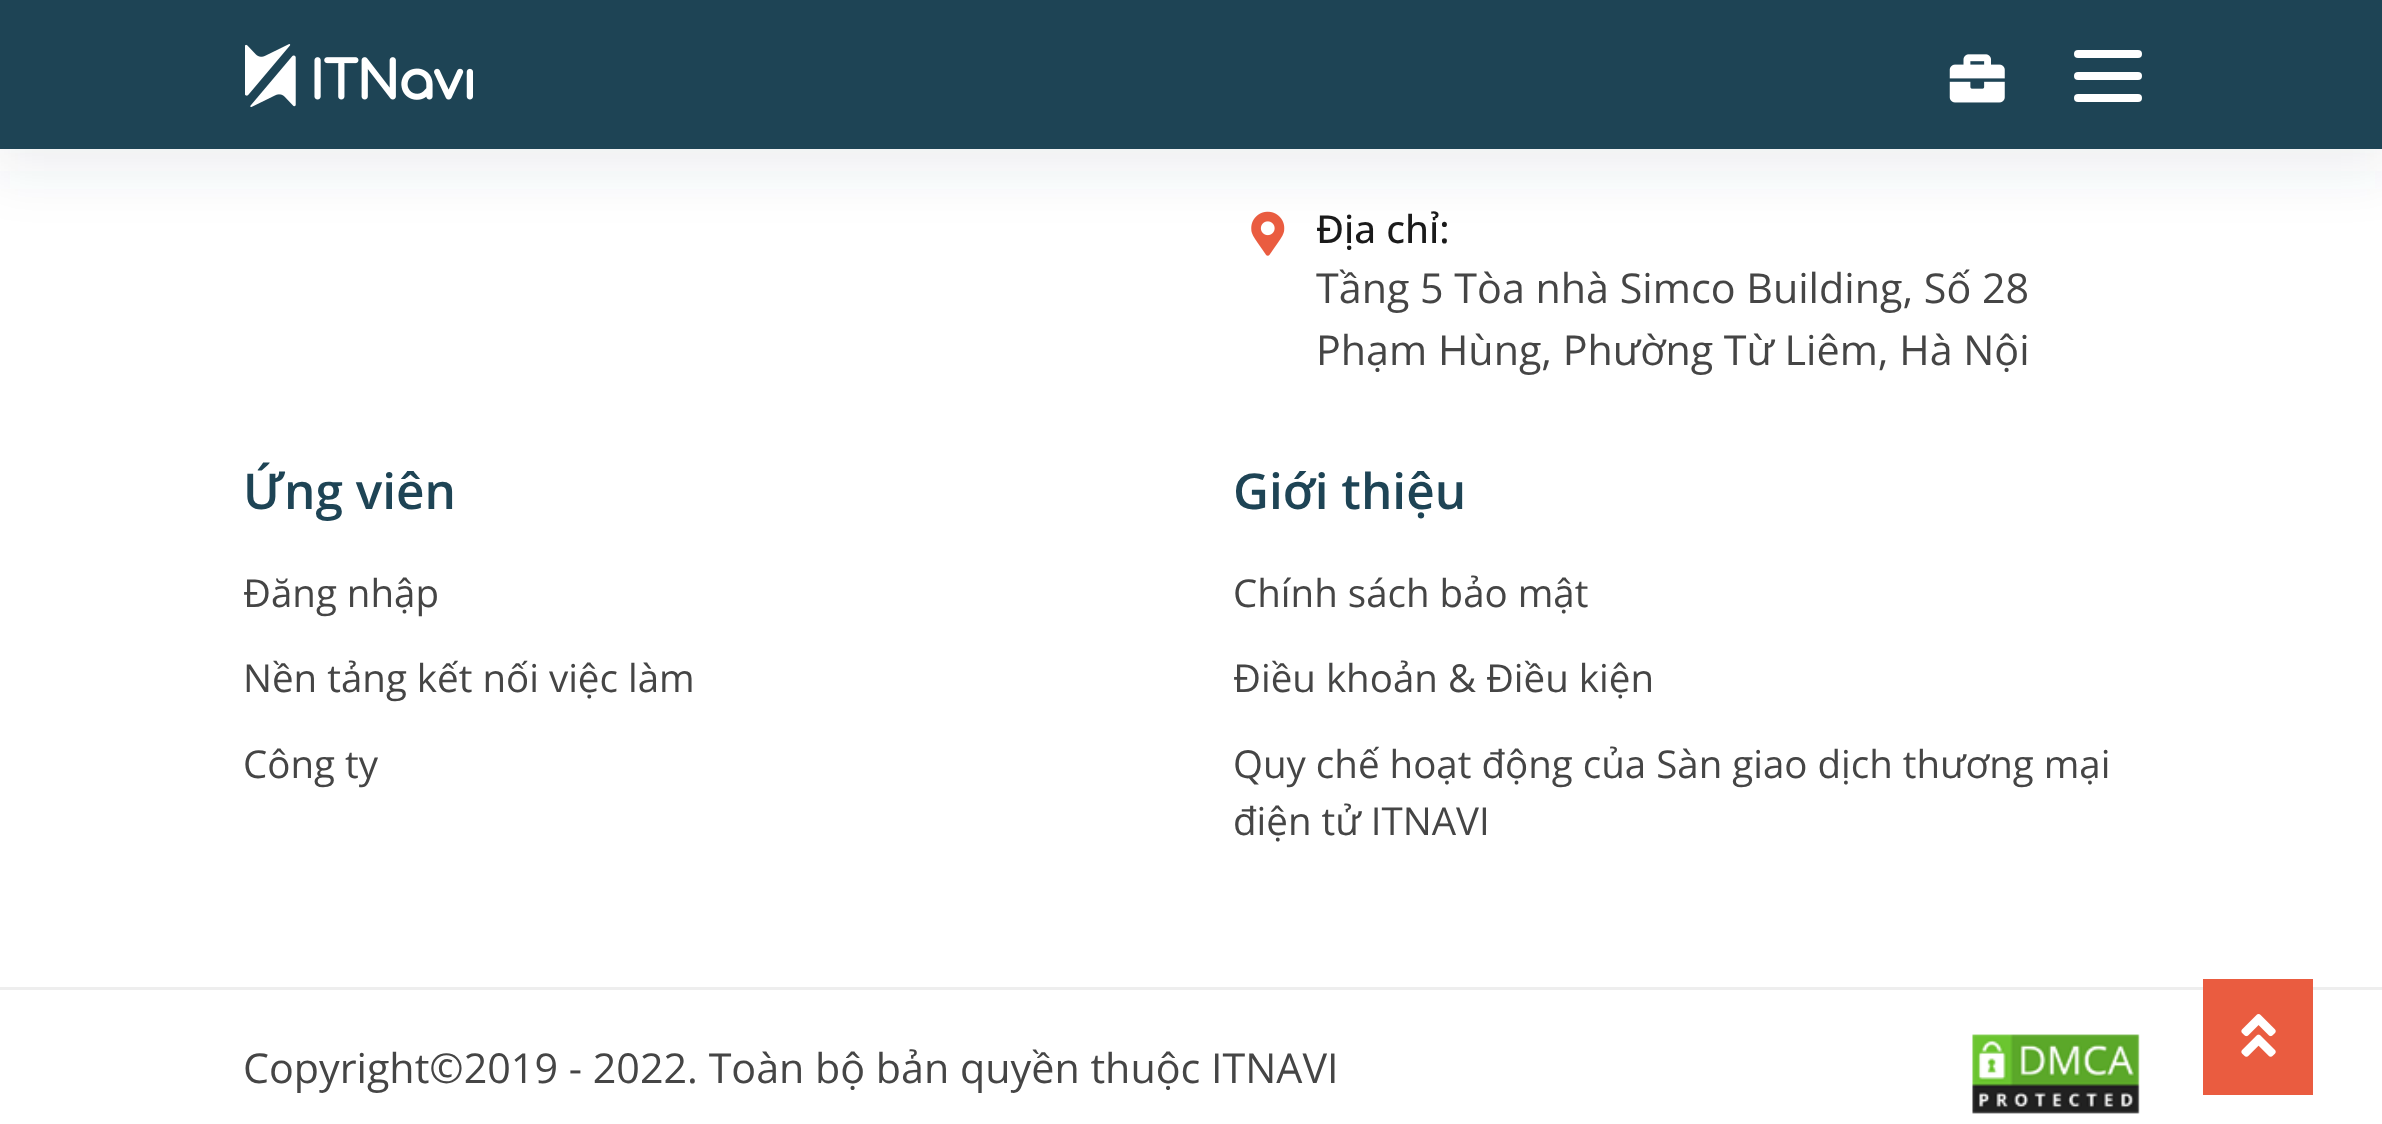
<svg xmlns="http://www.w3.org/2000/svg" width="2382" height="1124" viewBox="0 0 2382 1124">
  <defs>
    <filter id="blur1" x="-50%" y="-200%" width="200%" height="500%"><feGaussianBlur stdDeviation="27.5"/></filter>
  </defs>
  <rect width="100%" height="100%" fill="#ffffff"/>
  <image x="1251" y="211" width="34" height="45" href="img3.png"/>
  <rect x="-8" y="6" width="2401" height="165" fill="#345665" fill-opacity="0.09" filter="url(#blur1)"/>
  <rect x="0" y="0" width="2382" height="149" fill="#1e4455"/>
  <image x="245" y="44" width="228" height="63" href="img1.png"/>
  <rect x="2074" y="50" width="68" height="8" rx="4" fill="#ffffff"/>
  <rect x="2074" y="72" width="68" height="8" rx="4" fill="#ffffff"/>
  <rect x="2074" y="94" width="68" height="8" rx="4" fill="#ffffff"/>
  <image x="1949" y="54" width="56" height="49" href="img2.png"/>
  <text x="1316" y="243" font-family="Open Sans" font-size="38.5" font-weight="500" fill="#1a1a1a">Địa chỉ:</text>
  <text x="1316" y="303" font-family="Open Sans" font-size="41.25" fill="#454545">Tầng 5 Tòa nhà Simco Building, Số 28</text>
  <text x="1316" y="365" font-family="Open Sans" font-size="41.25" fill="#454545">Phạm Hùng, Phường Từ Liêm, Hà Nội</text>
  <text x="243" y="509" font-family="Open Sans" font-size="49.5" font-weight="600" fill="#1e4455">Ứng viên</text>
  <text x="243" y="607" font-family="Open Sans" font-size="38.5" fill="#454545">Đăng nhập</text>
  <text x="243" y="692" font-family="Open Sans" font-size="38.5" fill="#454545">Nền tảng kết nối việc làm</text>
  <text x="243" y="778" font-family="Open Sans" font-size="38.5" fill="#454545">Công ty</text>
  <text x="1233" y="509" font-family="Open Sans" font-size="49.5" font-weight="600" fill="#1e4455">Giới thiệu</text>
  <text x="1233" y="607" font-family="Open Sans" font-size="38.5" fill="#454545">Chính sách bảo mật</text>
  <text x="1233" y="692" font-family="Open Sans" font-size="38.5" fill="#454545">Điều khoản &amp; Điều kiện</text>
  <text x="1233" y="778" font-family="Open Sans" font-size="38.5" fill="#454545">Quy chế hoạt động của Sàn giao dịch thương mại</text>
  <text x="1233" y="835" font-family="Open Sans" font-size="38.5" fill="#454545">điện tử ITNAVI</text>
  <rect x="0" y="987" width="2382" height="3" fill="#eeeeee"/>
  <text x="243" y="1083" font-family="Open Sans" font-size="41.25" fill="#454545">Copyright©2019 - 2022. Toàn bộ bản quyền thuộc ITNAVI</text>
  <image x="1972" y="1034" width="168" height="80" href="img4.png"/>
  <rect x="2203" y="979" width="110" height="116" fill="#ea5c40"/>
  <image x="2241" y="1014" width="35" height="43" href="img5.png"/>
</svg>
